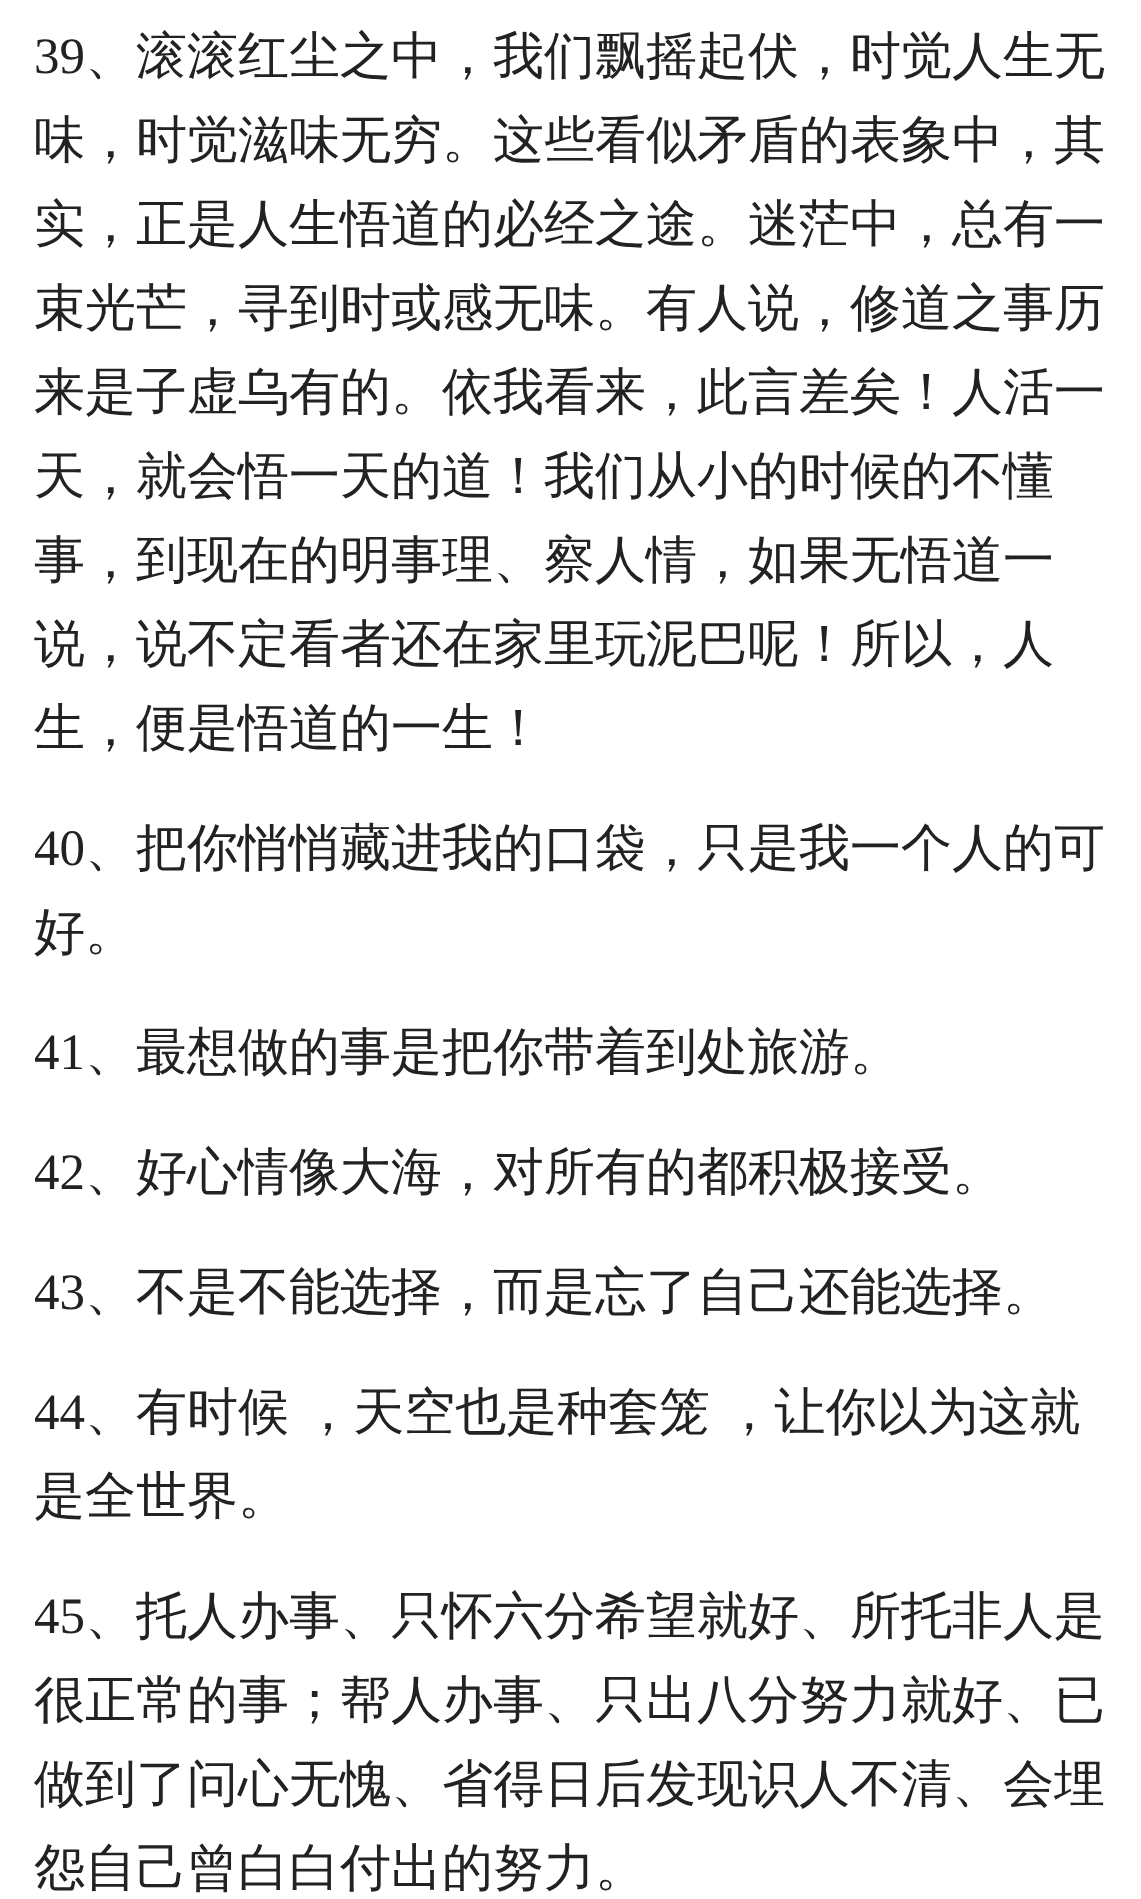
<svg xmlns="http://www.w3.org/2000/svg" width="1141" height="1899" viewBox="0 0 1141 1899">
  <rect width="100%" height="100%" fill="#ffffff"/>
  <text x="34" y="73" font-family="Liberation Serif" font-size="51" fill="#222222">39</text>
  <text x="85" y="73" font-family="WenQuanYi Zen Hei" font-size="51" font-weight="500" fill="#222222">、滚滚红尘之中，我们飘摇起伏，时觉人生无</text>
  <text x="34" y="157" font-family="WenQuanYi Zen Hei" font-size="51" font-weight="500" fill="#222222">味，时觉滋味无穷。这些看似矛盾的表象中，其</text>
  <text x="34" y="241" font-family="WenQuanYi Zen Hei" font-size="51" font-weight="500" fill="#222222">实，正是人生悟道的必经之途。迷茫中，总有一</text>
  <text x="34" y="325" font-family="WenQuanYi Zen Hei" font-size="51" font-weight="500" fill="#222222">束光芒，寻到时或感无味。有人说，修道之事历</text>
  <text x="34" y="409" font-family="WenQuanYi Zen Hei" font-size="51" font-weight="500" fill="#222222">来是子虚乌有的。依我看来，此言差矣！人活一</text>
  <text x="34" y="493" font-family="WenQuanYi Zen Hei" font-size="51" font-weight="500" fill="#222222">天，就会悟一天的道！我们从小的时候的不懂</text>
  <text x="34" y="577" font-family="WenQuanYi Zen Hei" font-size="51" font-weight="500" fill="#222222">事，到现在的明事理、察人情，如果无悟道一</text>
  <text x="34" y="661" font-family="WenQuanYi Zen Hei" font-size="51" font-weight="500" fill="#222222">说，说不定看者还在家里玩泥巴呢！所以，人</text>
  <text x="34" y="745" font-family="WenQuanYi Zen Hei" font-size="51" font-weight="500" fill="#222222">生，便是悟道的一生！</text>
  <text x="34" y="865" font-family="Liberation Serif" font-size="51" fill="#222222">40</text>
  <text x="85" y="865" font-family="WenQuanYi Zen Hei" font-size="51" font-weight="500" fill="#222222">、把你悄悄藏进我的口袋，只是我一个人的可</text>
  <text x="34" y="949" font-family="WenQuanYi Zen Hei" font-size="51" font-weight="500" fill="#222222">好。</text>
  <text x="34" y="1069" font-family="Liberation Serif" font-size="51" fill="#222222">41</text>
  <text x="85" y="1069" font-family="WenQuanYi Zen Hei" font-size="51" font-weight="500" fill="#222222">、最想做的事是把你带着到处旅游。</text>
  <text x="34" y="1189" font-family="Liberation Serif" font-size="51" fill="#222222">42</text>
  <text x="85" y="1189" font-family="WenQuanYi Zen Hei" font-size="51" font-weight="500" fill="#222222">、好心情像大海，对所有的都积极接受。</text>
  <text x="34" y="1309" font-family="Liberation Serif" font-size="51" fill="#222222">43</text>
  <text x="85" y="1309" font-family="WenQuanYi Zen Hei" font-size="51" font-weight="500" fill="#222222">、不是不能选择，而是忘了自己还能选择。</text>
  <text x="34" y="1429" font-family="Liberation Serif" font-size="51" fill="#222222">44</text>
  <text x="85" y="1429" word-spacing="-2" font-family="WenQuanYi Zen Hei" font-size="51" font-weight="500" fill="#222222">、有时候 ，天空也是种套笼 ，让你以为这就</text>
  <text x="34" y="1513" font-family="WenQuanYi Zen Hei" font-size="51" font-weight="500" fill="#222222">是全世界。</text>
  <text x="34" y="1633" font-family="Liberation Serif" font-size="51" fill="#222222">45</text>
  <text x="85" y="1633" font-family="WenQuanYi Zen Hei" font-size="51" font-weight="500" fill="#222222">、托人办事、只怀六分希望就好、所托非人是</text>
  <text x="34" y="1717" font-family="WenQuanYi Zen Hei" font-size="51" font-weight="500" fill="#222222">很正常的事；帮人办事、只出八分努力就好、已</text>
  <text x="34" y="1801" font-family="WenQuanYi Zen Hei" font-size="51" font-weight="500" fill="#222222">做到了问心无愧、省得日后发现识人不清、会埋</text>
  <text x="34" y="1885" font-family="WenQuanYi Zen Hei" font-size="51" font-weight="500" fill="#222222">怨自己曾白白付出的努力。</text>
</svg>
